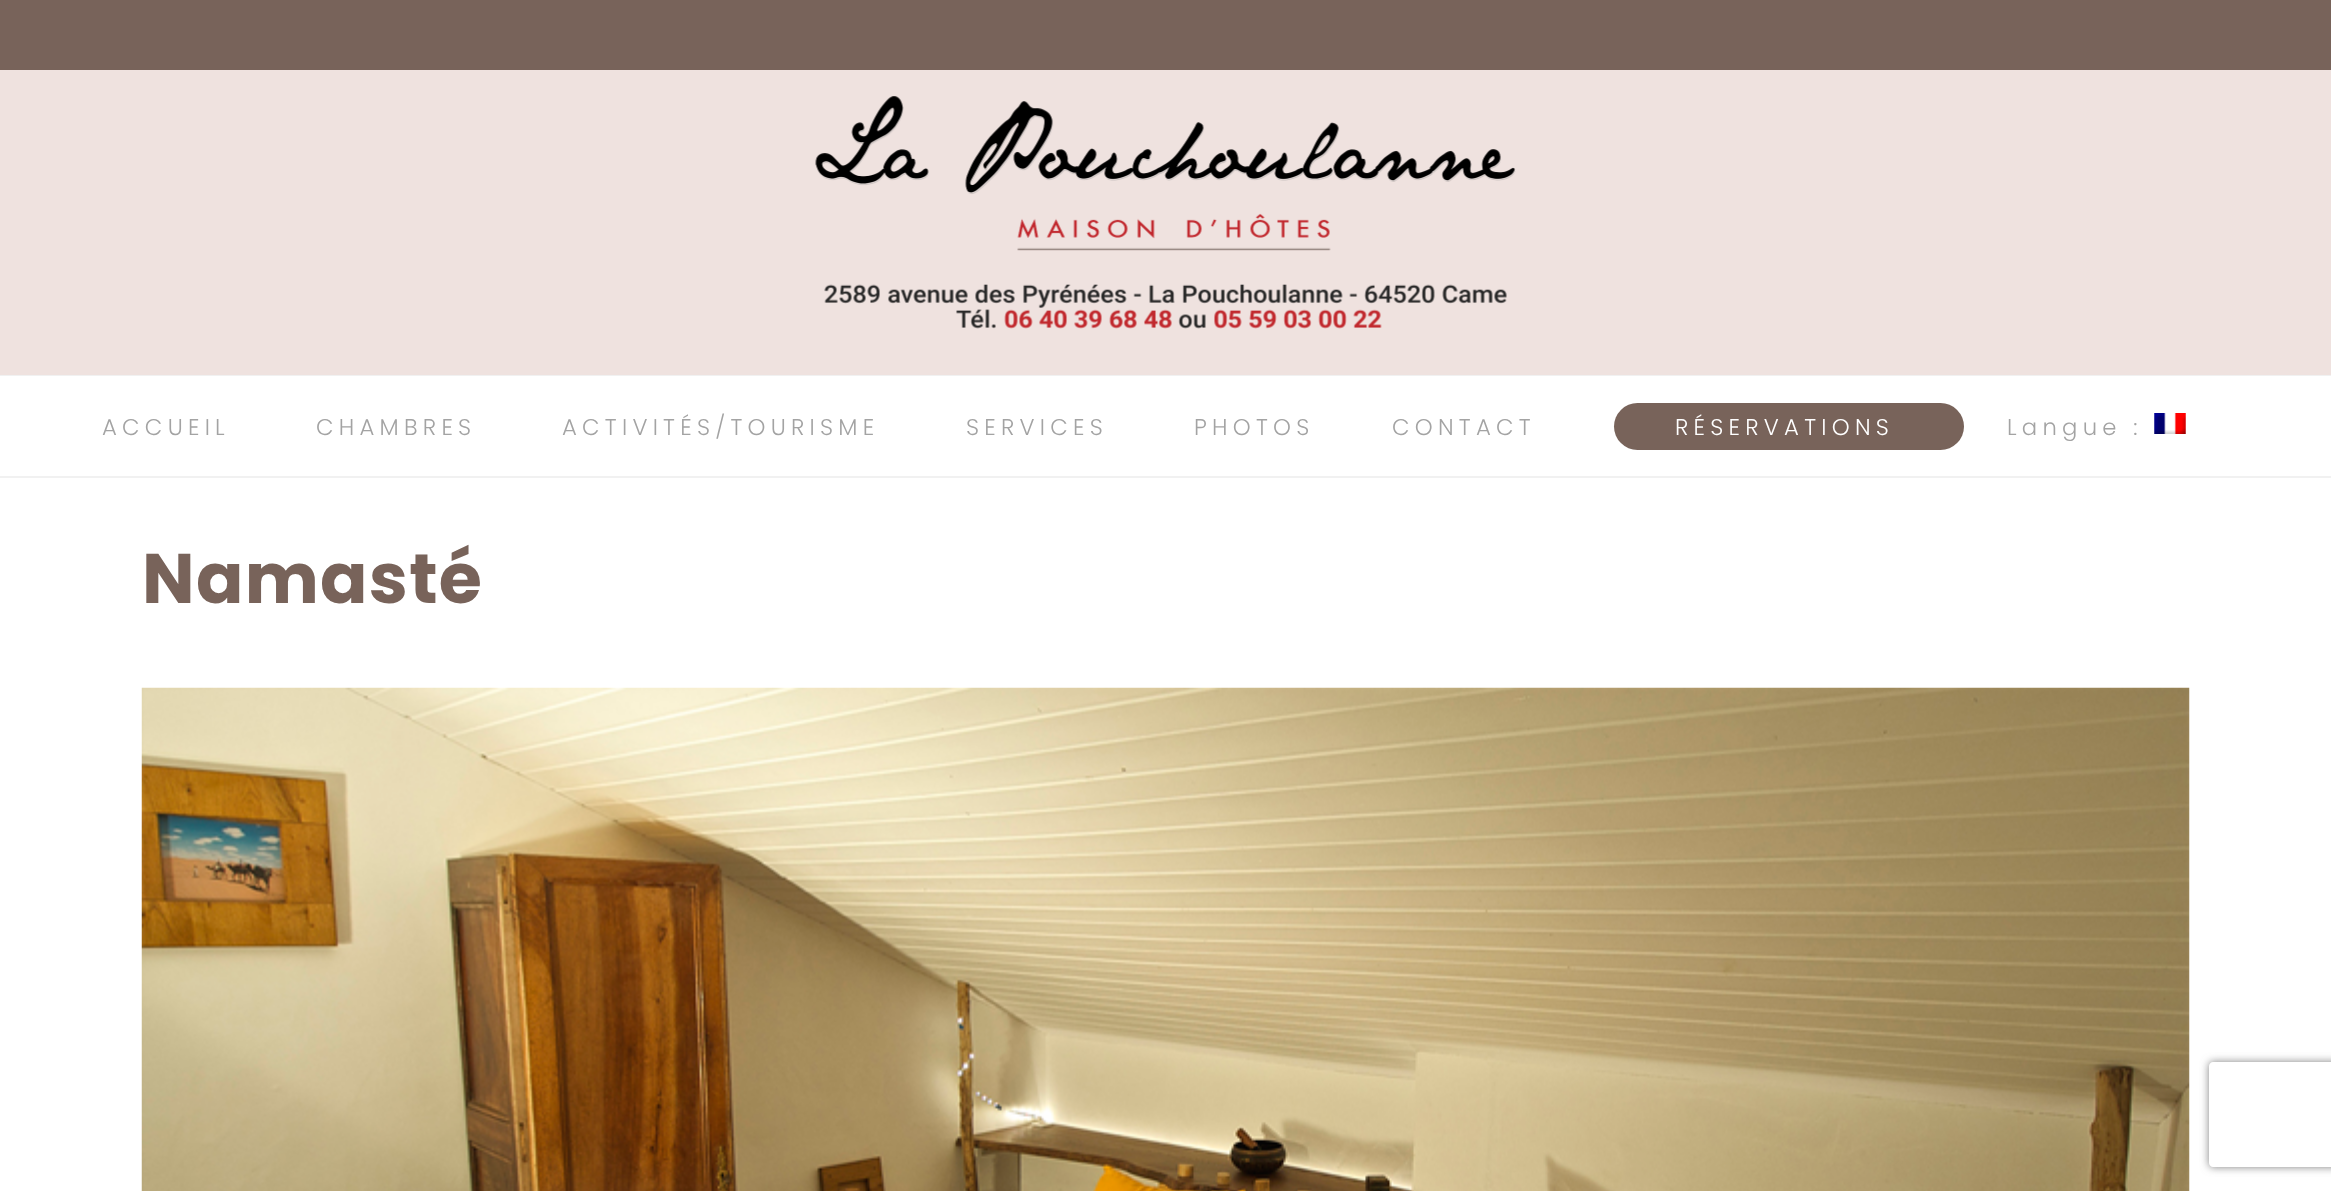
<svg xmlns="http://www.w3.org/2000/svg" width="2331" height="1191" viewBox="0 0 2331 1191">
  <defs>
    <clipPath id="clip1"><path d="M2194 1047H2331V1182H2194ZM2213 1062H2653C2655 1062 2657 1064 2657 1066V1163C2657 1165 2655 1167 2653 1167H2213C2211 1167 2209 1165 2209 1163V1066C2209 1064 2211 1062 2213 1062Z" clip-rule="evenodd"/></clipPath>
    <filter id="blur1" x="-50%" y="-200%" width="200%" height="500%"><feGaussianBlur stdDeviation="4.5"/></filter>
  </defs>
  <rect width="100%" height="100%" fill="#ffffff"/>
  <rect x="0" y="0" width="2331" height="70" fill="#78635a"/>
  <rect x="0" y="70" width="2331" height="305" fill="#efe2df"/>
  <image x="815" y="96" width="701" height="233" href="img1.png"/>
  <rect x="0" y="375" width="2331" height="1" fill="#f1f1f1"/>
  <rect x="0" y="476" width="2331" height="2" fill="#f1f1f1"/>
  <text x="102" y="435" font-family="Poppins" font-size="22.75" font-weight="300" letter-spacing="5.25" fill="#a3a3a3">ACCUEIL</text>
  <text x="316" y="435" font-family="Poppins" font-size="22.75" font-weight="300" letter-spacing="5.25" fill="#a3a3a3">CHAMBRES</text>
  <text x="562" y="435" font-family="Poppins" font-size="22.75" font-weight="300" letter-spacing="5.25" fill="#a3a3a3">ACTIVITÉS/TOURISME</text>
  <text x="966" y="435" font-family="Poppins" font-size="22.75" font-weight="300" letter-spacing="5.25" fill="#a3a3a3">SERVICES</text>
  <text x="1194" y="435" font-family="Poppins" font-size="22.75" font-weight="300" letter-spacing="5.25" fill="#a3a3a3">PHOTOS</text>
  <text x="1392" y="435" font-family="Poppins" font-size="22.75" font-weight="300" letter-spacing="5.25" fill="#a3a3a3">CONTACT</text>
  <rect x="1614" y="403" width="350" height="47" rx="23.5" fill="#78635a"/>
  <text x="1675" y="435" font-family="Poppins" font-size="22.75" font-weight="300" letter-spacing="5.25" fill="#ffffff">RÉSERVATIONS</text>
  <text x="2007" y="435" font-family="Poppins" font-size="22.75" font-weight="300" letter-spacing="5.25" fill="#a3a3a3">Langue :</text>
  <image x="2154" y="413" width="32" height="21" href="img2.png"/>
  <text x="142" y="603" font-family="Poppins" font-size="70" font-weight="bold" letter-spacing="1.25" fill="#78635a">Namasté</text>
  <image x="141" y="687" width="2049" height="504" href="img3.png"/>
  <g clip-path="url(#clip1)">
    <rect x="2209" y="1062" width="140" height="105" rx="4" fill="#808080" filter="url(#blur1)"/>
  </g>
</svg>
